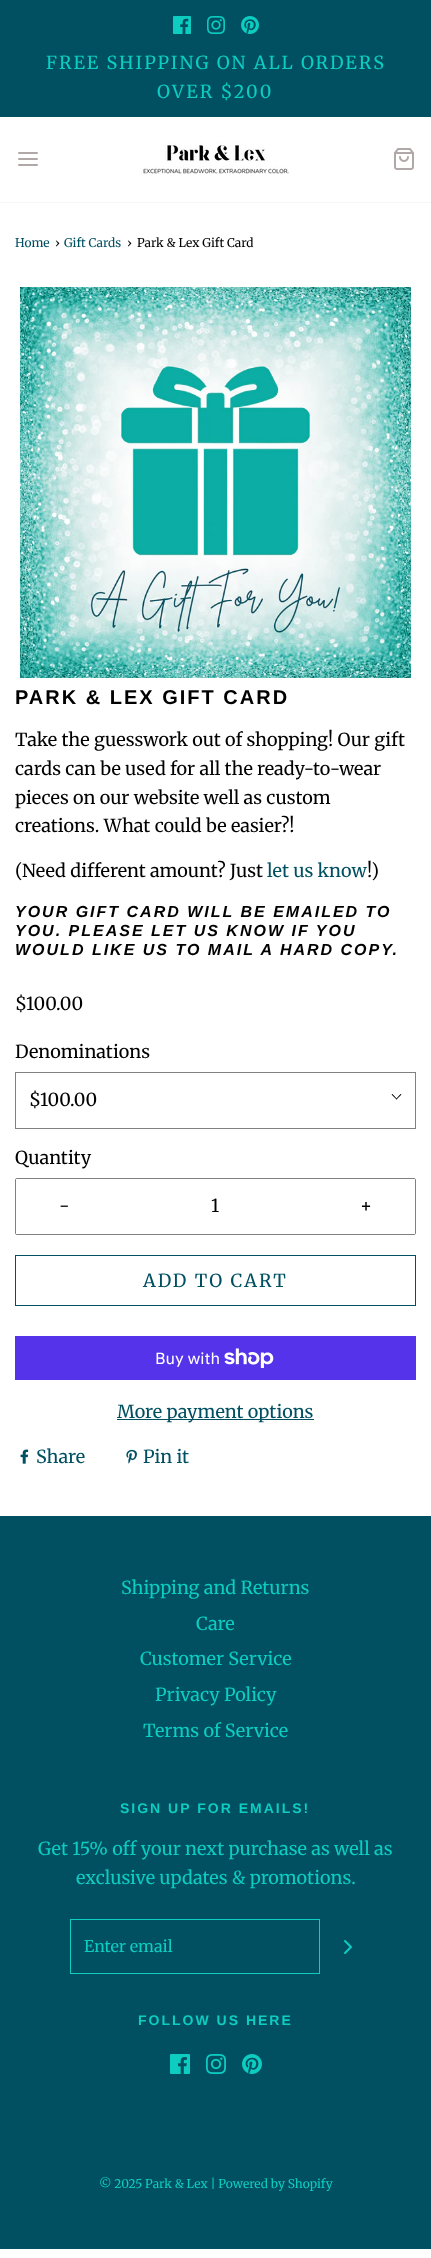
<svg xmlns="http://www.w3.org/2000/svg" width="431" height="2258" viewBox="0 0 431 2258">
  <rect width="100%" height="100%" fill="#ffffff"/>
  <rect x="0" y="0" width="431" height="117" fill="#005062"/>
  <image x="173" y="16" width="18" height="18" href="img1.png"/>
  <image x="207" y="16" width="18" height="18" href="img2.png"/>
  <image x="241" y="16" width="18" height="18" href="img3.png"/>
  <text x="46" y="69" font-family="Merriweather" font-size="18" letter-spacing="2" fill="#0dccc0">FREE SHIPPING ON ALL ORDERS</text>
  <text x="157" y="98" font-family="Merriweather" font-size="18" letter-spacing="2" fill="#0dccc0">OVER $200</text>
  <rect x="0" y="202" width="431" height="1" fill="#f7f6f6"/>
  <path d="M19 159H37M19 153H37M19 165H37" fill="none" stroke="#b1a8a8" stroke-width="2" stroke-linecap="round" stroke-linejoin="round"/>
  <image x="141" y="142" width="148" height="32" href="img4.png"/>
  <image x="394" y="148" width="20" height="22" href="img5.png"/>
  <text x="15" y="247" font-family="Merriweather" font-size="12" fill="#005062">Home</text>
  <text x="55" y="247" font-family="Merriweather" font-size="12" fill="#000000">›</text>
  <text x="64" y="247" font-family="Merriweather" font-size="12" fill="#005062">Gift Cards</text>
  <text x="127" y="247" font-family="Merriweather" font-size="12" fill="#000000">›</text>
  <text x="137" y="247" font-family="Merriweather" font-size="12" fill="#000000">Park &amp; Lex Gift Card</text>
  <image x="20" y="287" width="391" height="391" href="img6.png"/>
  <text x="15" y="704" font-family="Liberation Sans" font-size="20" font-weight="bold" letter-spacing="2" fill="#000000">PARK &amp; LEX GIFT CARD</text>
  <text x="15" y="746" font-family="Merriweather" font-size="18" fill="#000000">Take the guesswork out of shopping! Our gift</text>
  <text x="15" y="775" font-family="Merriweather" font-size="18" fill="#000000">cards can be used for all the ready-to-wear</text>
  <text x="15" y="804" font-family="Merriweather" font-size="18" fill="#000000">pieces on our website well as custom</text>
  <text x="15" y="832" font-family="Merriweather" font-size="18" fill="#000000">creations. What could be easier?!</text>
  <text x="15" y="877" font-family="Merriweather" font-size="18" fill="#000000">(Need different amount? Just</text>
  <text x="267" y="877" font-family="Merriweather" font-size="18" fill="#005062">let us know</text>
  <text x="367" y="877" font-family="Merriweather" font-size="18" fill="#000000">!)</text>
  <text x="15" y="917" font-family="Liberation Sans" font-size="16" font-weight="bold" font-style="italic" letter-spacing="2" fill="#000000">YOUR GIFT CARD WILL BE EMAILED TO</text>
  <text x="15" y="936" font-family="Liberation Sans" font-size="16" font-weight="bold" font-style="italic" letter-spacing="2" fill="#000000">YOU. PLEASE LET US KNOW IF YOU</text>
  <text x="15" y="955" font-family="Liberation Sans" font-size="16" font-weight="bold" font-style="italic" letter-spacing="2" fill="#000000">WOULD LIKE US TO MAIL A HARD COPY.</text>
  <text x="15" y="1010" font-family="Merriweather" font-size="18" fill="#000000">$100.00</text>
  <text x="15" y="1058" font-family="Merriweather" font-size="18" fill="#000000">Denominations</text>
  <rect x="15.5" y="1072.5" width="400" height="56" fill="none" stroke="#808080"/>
  <text x="29" y="1106" font-family="Merriweather" font-size="18" fill="#000000">$100.00</text>
  <path d="M400.5 1094L401.5 1094.5L396.5 1099.5L396 1099Z" fill="#000000"/>
  <path d="M392.5 1094L397 1099L396.5 1099.5L391.5 1094.5Z" fill="#000000"/>
  <text x="15" y="1164" font-family="Merriweather" font-size="18" fill="#000000">Quantity</text>
  <rect x="15.5" y="1178.5" width="400" height="56" rx="1.5" fill="none" stroke="#808080"/>
  <rect x="16" y="1179" width="1" height="55" fill="#ffffff"/>
  <text x="59" y="1212" font-family="Merriweather" font-size="18" fill="#000000">-</text>
  <text x="211" y="1212" font-family="Merriweather" font-size="18" fill="#000000">1</text>
  <rect x="414" y="1179" width="1" height="55" fill="#ffffff"/>
  <text x="360" y="1212" font-family="Merriweather" font-size="18" fill="#000000">+</text>
  <rect x="15.5" y="1255.5" width="400" height="50" fill="none" stroke="#005062"/>
  <text x="143" y="1287" font-family="Merriweather" font-size="18" letter-spacing="2" fill="#005062">ADD TO CART</text>
  <rect x="15" y="1336" width="401" height="44" fill="#5433eb"/>
  <text x="155" y="1364" font-family="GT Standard" font-size="16" fill="#ffffff">Buy with</text>
  <image x="224" y="1348" width="50" height="20" href="img7.png"/>
  <rect x="117" y="1419" width="197" height="1" fill="#005062"/>
  <text x="117" y="1418" font-family="Merriweather" font-size="18" fill="#005062">More payment options</text>
  <image x="20" y="1449" width="9" height="15" href="img8.png"/>
  <text x="36" y="1463" font-family="Merriweather" font-size="18" fill="#005062">Share</text>
  <image x="126" y="1449" width="11" height="15" href="img9.png"/>
  <text x="143" y="1463" font-family="Merriweather" font-size="18" fill="#005062">Pin it</text>
  <rect x="0" y="1516" width="431" height="733" fill="#005062"/>
  <text x="121" y="1594" font-family="Merriweather" font-size="18" fill="#0dccc0">Shipping and Returns</text>
  <text x="196" y="1630" font-family="Merriweather" font-size="18" fill="#0dccc0">Care</text>
  <text x="140" y="1665" font-family="Merriweather" font-size="18" fill="#0dccc0">Customer Service</text>
  <text x="155" y="1701" font-family="Merriweather" font-size="18" fill="#0dccc0">Privacy Policy</text>
  <text x="143" y="1737" font-family="Merriweather" font-size="18" fill="#0dccc0">Terms of Service</text>
  <text x="120" y="1813" font-family="Liberation Sans" font-size="14" font-weight="bold" letter-spacing="2" fill="#0dccc0">SIGN UP FOR EMAILS!</text>
  <text x="38" y="1855" font-family="Merriweather" font-size="18" fill="#0dccc0">Get 15% off your next purchase as well as</text>
  <text x="76" y="1884" font-family="Merriweather" font-size="18" fill="#0dccc0">exclusive updates &amp; promotions.</text>
  <rect x="70.5" y="1919.5" width="249" height="54" fill="none" stroke="#0dccc0"/>
  <text x="84" y="1952" font-family="Merriweather" font-size="16" fill="#0dccc0">Enter email</text>
  <path d="M345 1953L351 1947L345 1941" fill="none" stroke="#0dccc0" stroke-width="2" stroke-linecap="round" stroke-linejoin="round"/>
  <text x="138" y="2025" font-family="Liberation Sans" font-size="14" font-weight="bold" letter-spacing="2" fill="#0dccc0">FOLLOW US HERE</text>
  <image x="170" y="2054" width="20" height="20" href="img10.png"/>
  <image x="206" y="2054" width="20" height="20" href="img11.png"/>
  <image x="242" y="2054" width="20" height="20" href="img12.png"/>
  <text x="99" y="2188" font-family="Merriweather" font-size="12" fill="#0dccc0">© 2025 Park &amp; Lex | Powered by Shopify</text>
</svg>
